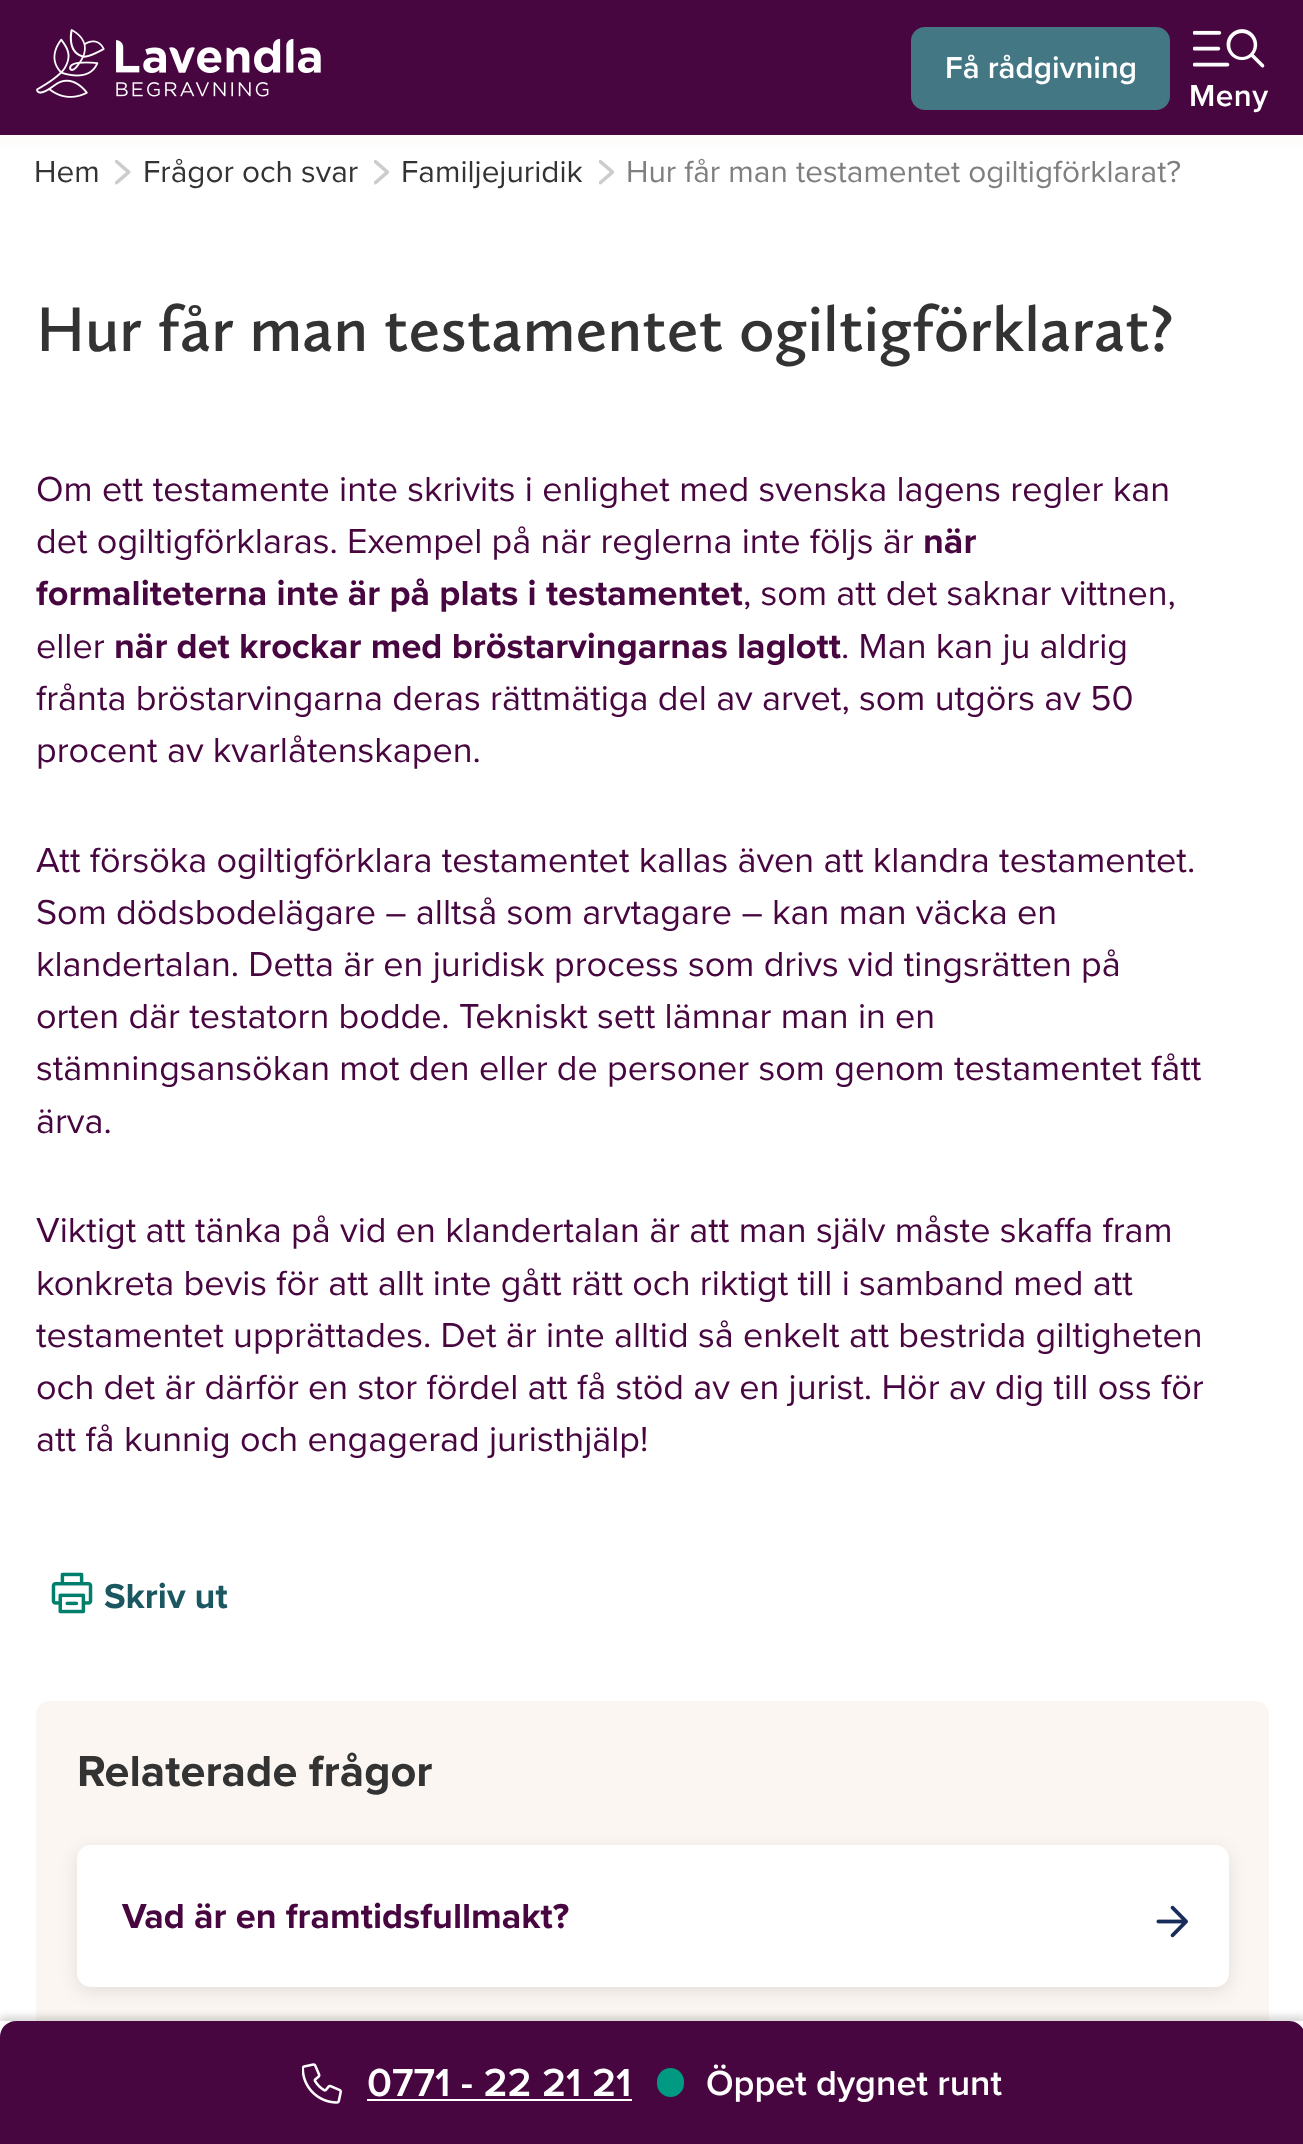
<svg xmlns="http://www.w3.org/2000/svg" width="1303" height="2144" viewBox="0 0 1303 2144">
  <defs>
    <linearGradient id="g1" gradientUnits="userSpaceOnUse" x1="652" y1="0" x2="653" y2="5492"><stop offset="0" stop-color="#f9eae7"/><stop offset="0.03" stop-color="#ffffff"/><stop offset="0.73" stop-color="#ffffff"/><stop offset="1" stop-color="#f9eae7"/></linearGradient>
    <filter id="blur1" x="-50%" y="-200%" width="200%" height="500%"><feGaussianBlur stdDeviation="9"/></filter>
    <filter id="blur2" x="-50%" y="-200%" width="200%" height="500%"><feGaussianBlur stdDeviation="3.5"/></filter>
  </defs>
  <rect width="100%" height="100%" fill="#ffffff"/>
  <rect x="0" y="0" width="1303" height="135" fill="#480640"/>
  <image x="36" y="29" width="285" height="69" href="img1.png"/>
  <rect x="912" y="28" width="257" height="81" rx="13" fill="#437783" stroke="#437783" stroke-width="2"/>
  <text x="945" y="78" font-family="Proxima Nova" font-size="31.5" font-weight="600" fill="#ffffff">Få rådgivning</text>
  <image x="1193" y="29" width="72" height="39" href="img2.png"/>
  <text x="1189" y="106" font-family="Proxima Nova" font-size="31.5" font-weight="600" letter-spacing="0.5" fill="#ffffff">Meny</text>
  <rect x="0" y="135" width="1303" height="13" fill="url(#g1)"/>
  <text x="34" y="182" font-family="Proxima Nova" font-size="31.5" fill="#333333">Hem</text>
  <image x="115" y="160" width="16" height="25" href="img3.png"/>
  <text x="143" y="182" font-family="Proxima Nova" font-size="31.5" fill="#333333">Frågor och svar</text>
  <image x="374" y="160" width="15" height="25" href="img4.png"/>
  <text x="401" y="182" font-family="Proxima Nova" font-size="31.5" fill="#333333">Familjejuridik</text>
  <image x="599" y="160" width="15" height="25" href="img5.png"/>
  <text x="626" y="182" font-family="Proxima Nova" font-size="31.5" fill="#807f7f">Hur får man testamentet ogiltigförklarat?</text>
  <text x="36" y="351" font-family="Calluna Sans" font-size="65.25" font-weight="600" fill="#333333">Hur får man testamentet ogiltigförklarat?</text>
  <text x="36" y="501" font-family="Proxima Nova" font-size="36" fill="#480640">Om ett testamente inte skrivits i enlighet med svenska lagens regler kan</text>
  <text x="36" y="553" font-family="Proxima Nova" font-size="36" fill="#480640">det ogiltigförklaras. Exempel på när reglerna inte följs är</text>
  <text x="923" y="553" font-family="Proxima Nova" font-size="36" font-weight="bold" fill="#480640">när</text>
  <text x="36" y="605" font-family="Proxima Nova" font-size="36" font-weight="bold" fill="#480640">formaliteterna inte är på plats i testamentet</text>
  <text x="743" y="605" font-family="Proxima Nova" font-size="36" fill="#480640">, som att det saknar vittnen,</text>
  <text x="36" y="658" font-family="Proxima Nova" font-size="36" fill="#480640">eller</text>
  <text x="114" y="658" font-family="Proxima Nova" font-size="36" font-weight="bold" fill="#480640">när det krockar med bröstarvingarnas laglott</text>
  <text x="841" y="658" font-family="Proxima Nova" font-size="36" fill="#480640">. Man kan ju aldrig</text>
  <text x="36" y="710" font-family="Proxima Nova" font-size="36" fill="#480640">frånta bröstarvingarna deras rättmätiga del av arvet, som utgörs av 50</text>
  <text x="36" y="762" font-family="Proxima Nova" font-size="36" fill="#480640">procent av kvarlåtenskapen.</text>
  <text x="36" y="872" font-family="Proxima Nova" font-size="36" fill="#480640">Att försöka ogiltigförklara testamentet kallas även att klandra testamentet.</text>
  <text x="36" y="924" font-family="Proxima Nova" font-size="36" fill="#480640">Som dödsbodelägare – alltså som arvtagare – kan man väcka en</text>
  <text x="36" y="976" font-family="Proxima Nova" font-size="36" fill="#480640">klandertalan. Detta är en juridisk process som drivs vid tingsrätten på</text>
  <text x="36" y="1028" font-family="Proxima Nova" font-size="36" fill="#480640">orten där testatorn bodde. Tekniskt sett lämnar man in en</text>
  <text x="36" y="1080" font-family="Proxima Nova" font-size="36" fill="#480640">stämningsansökan mot den eller de personer som genom testamentet fått</text>
  <text x="36" y="1133" font-family="Proxima Nova" font-size="36" fill="#480640">ärva.</text>
  <text x="36" y="1242" font-family="Proxima Nova" font-size="36" fill="#480640">Viktigt att tänka på vid en klandertalan är att man själv måste skaffa fram</text>
  <text x="36" y="1295" font-family="Proxima Nova" font-size="36" fill="#480640">konkreta bevis för att allt inte gått rätt och riktigt till i samband med att</text>
  <text x="36" y="1347" font-family="Proxima Nova" font-size="36" fill="#480640">testamentet upprättades. Det är inte alltid så enkelt att bestrida giltigheten</text>
  <text x="36" y="1399" font-family="Proxima Nova" font-size="36" fill="#480640">och det är därför en stor fördel att få stöd av en jurist. Hör av dig till oss för</text>
  <text x="36" y="1451" font-family="Proxima Nova" font-size="36" fill="#480640">att få kunnig och engagerad juristhjälp!</text>
  <image x="51" y="1572" width="42" height="42" href="img6.png"/>
  <text x="104" y="1608" font-family="Proxima Nova" font-size="36" font-weight="bold" fill="#1b5761">Skriv ut</text>
  <rect x="36" y="1701" width="1233" height="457" rx="14" fill="#fbf6f1"/>
  <text x="77" y="1786" font-family="Proxima Nova" font-size="45" font-weight="bold" fill="#333333">Relaterade frågor</text>
  <rect x="77" y="1850" width="1152" height="141" rx="14" fill="#000000" fill-opacity="0.1" filter="url(#blur1)"/>
  <rect x="77" y="1845" width="1152" height="142" rx="14" fill="#ffffff"/>
  <text x="122" y="1928" font-family="Proxima Nova" font-size="36" font-weight="bold" fill="#480640">Vad är en framtidsfullmakt?</text>
  <image x="1156" y="1905" width="32" height="33" href="img7.png"/>
  <rect x="0" y="2016" width="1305" height="124" fill="#000000" fill-opacity="0.15" filter="url(#blur2)"/>
  <rect x="0" y="2021" width="1303" height="16" fill="#ffffff"/>
  <path d="M16 2021H1289C1298 2021 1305 2028 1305 2037V2144H0V2037C0 2028 7 2021 16 2021Z" fill="#480640"/>
  <image x="302" y="2063" width="40" height="41" href="img8.png"/>
  <text x="367" y="2096" font-family="Proxima Nova" font-size="40.5" font-weight="600" fill="#ffffff">0771 - 22 21 21</text>
  <rect x="367" y="2099" width="265" height="2" fill="#ffffff"/>
  <rect x="657" y="2068" width="27" height="29" rx="13.5" fill="#009a82"/>
  <text x="706" y="2095" font-family="Proxima Nova" font-size="36" font-weight="600" fill="#ffffff">Öppet dygnet runt</text>
</svg>
